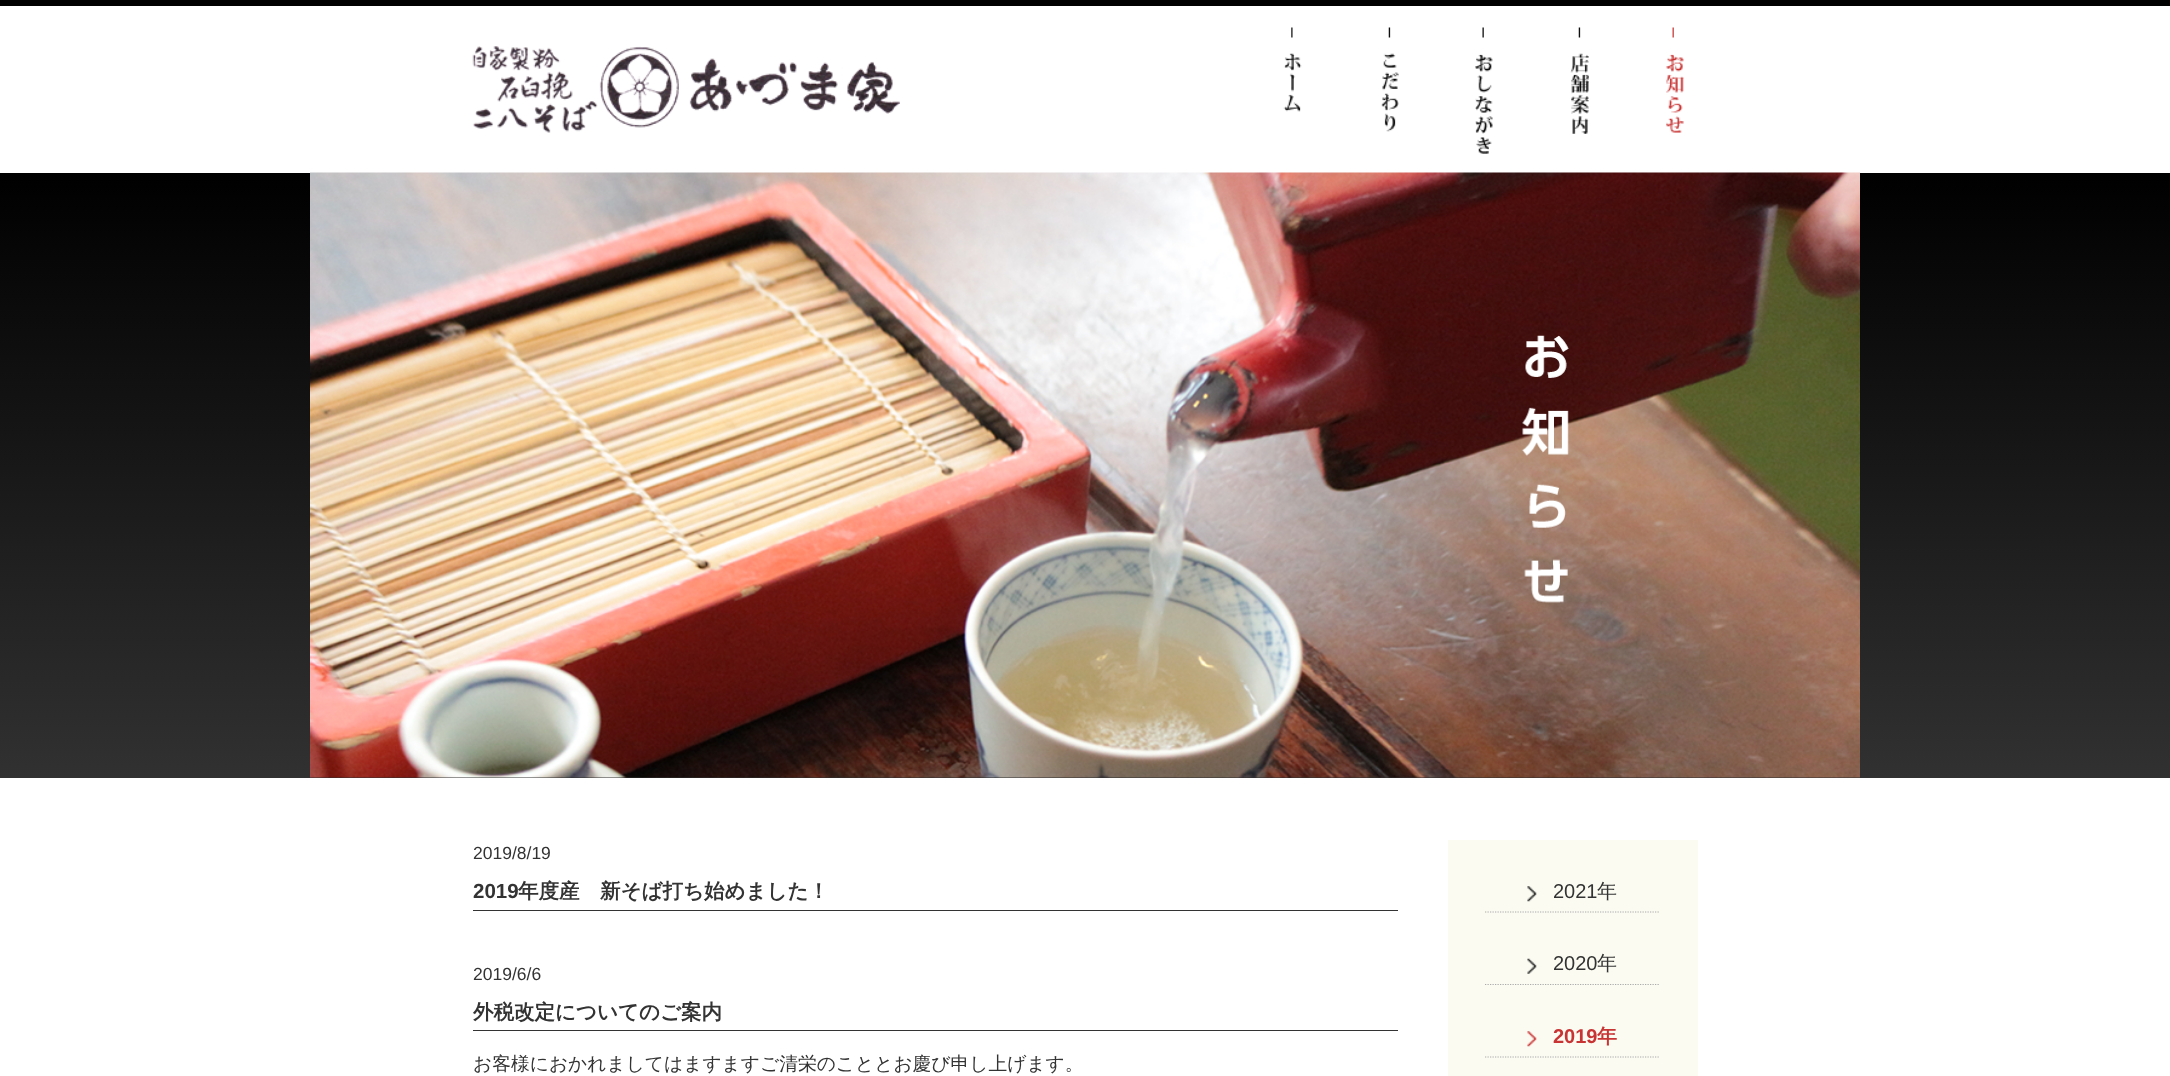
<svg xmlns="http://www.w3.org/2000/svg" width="2170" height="1076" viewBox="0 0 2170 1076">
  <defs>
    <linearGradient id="g1" gradientUnits="userSpaceOnUse" x1="1085" y1="172" x2="1085" y2="778"><stop offset="0" stop-color="#000000"/><stop offset="1" stop-color="#313131"/></linearGradient>
  </defs>
  <rect width="100%" height="100%" fill="#ffffff"/>
  <rect x="0" y="0" width="2170" height="6" fill="#000000"/>
  <image x="472" y="46" width="428" height="87" href="img1.png"/>
  <image x="1283" y="27" width="19" height="85" href="img2.png"/>
  <image x="1381" y="27" width="18" height="105" href="img3.png"/>
  <image x="1475" y="27" width="18" height="127" href="img4.png"/>
  <image x="1570" y="27" width="19" height="107" href="img5.png"/>
  <image x="1666" y="27" width="18" height="106" href="img6.png"/>
  <rect x="0" y="173" width="2170" height="605" fill="url(#g1)"/>
  <image x="310" y="172" width="1550" height="606" href="img7.png"/>
  <image x="1522" y="335" width="47" height="268" href="img8.png"/>
  <text x="473" y="859" font-family="Liberation Sans" font-size="17.5" fill="#333333">2019/8/19</text>
  <rect x="473" y="910" width="925" height="1" fill="#333333"/>
  <text x="473" y="898" font-family="Liberation Sans" font-size="20.5" font-weight="bold" fill="#333333">2019</text>
  <text x="518" y="898" font-family="WenQuanYi Zen Hei" font-size="20.5" font-weight="bold" fill="#333333">年度産　新そば打ち始めました！</text>
  <text x="473" y="980" font-family="Liberation Sans" font-size="17.5" fill="#333333">2019/6/6</text>
  <rect x="473" y="1030" width="925" height="1" fill="#333333"/>
  <text x="473" y="1019" font-family="WenQuanYi Zen Hei" font-size="20.5" font-weight="bold" fill="#333333">外税改定についてのご案内</text>
  <text x="473" y="1070" font-family="WenQuanYi Zen Hei" font-size="18.75" font-weight="500" fill="#333333">お客様におかれましてはますますご清栄のこととお慶び申し上げます。</text>
  <rect x="1448" y="840" width="250" height="236" fill="#fbfbf2"/>
  <path d="M1485 912H1660" fill="none" stroke="#aaaaaa" stroke-width="1.2" stroke-dasharray="1.25 1.25"/>
  <image x="1527" y="886" width="10" height="16" href="img9.png"/>
  <text x="1553" y="898" font-family="Liberation Sans" font-size="20" fill="#333333">2021</text>
  <text x="1597" y="898" font-family="WenQuanYi Zen Hei" font-size="20" font-weight="500" fill="#333333">年</text>
  <path d="M1485 984.5H1660" fill="none" stroke="#aaaaaa" stroke-width="1.2" stroke-dasharray="1.25 1.25"/>
  <image x="1527" y="958" width="10" height="16" href="img10.png"/>
  <text x="1553" y="970" font-family="Liberation Sans" font-size="20" fill="#333333">2020</text>
  <text x="1597" y="970" font-family="WenQuanYi Zen Hei" font-size="20" font-weight="500" fill="#333333">年</text>
  <path d="M1485 1057H1660" fill="none" stroke="#aaaaaa" stroke-width="1.2" stroke-dasharray="1.25 1.25"/>
  <image x="1527" y="1031" width="10" height="16" href="img11.png"/>
  <text x="1553" y="1043" font-family="Liberation Sans" font-size="20" font-weight="bold" fill="#c83434">2019</text>
  <text x="1597" y="1043" font-family="WenQuanYi Zen Hei" font-size="20" font-weight="bold" fill="#c83434">年</text>
</svg>
